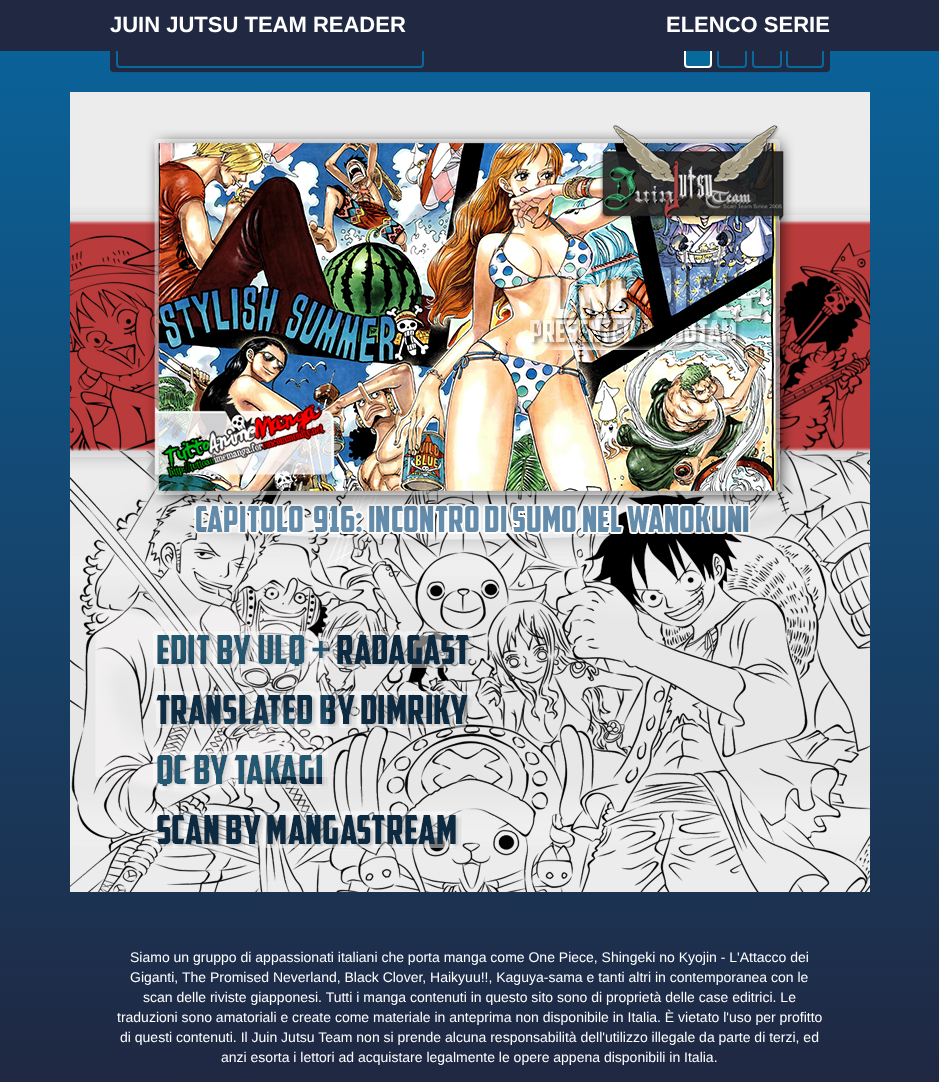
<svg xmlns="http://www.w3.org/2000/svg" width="939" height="1082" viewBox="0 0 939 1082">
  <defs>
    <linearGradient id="g1" gradientUnits="userSpaceOnUse" x1="469" y1="-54" x2="470" y2="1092"><stop offset="0" stop-color="#0868a2"/><stop offset="1" stop-color="#202741"/></linearGradient>
    <filter id="blur1" x="-50%" y="-200%" width="200%" height="500%"><feGaussianBlur stdDeviation="0.5"/></filter>
  </defs>
  <rect width="100%" height="100%" fill="#ffffff"/>
  <rect x="0" y="51" width="939" height="1031" fill="url(#g1)"/>
  <rect x="110" y="27" width="720" height="46" rx="4" fill="#000000" fill-opacity="0.05" filter="url(#blur1)"/>
  <rect x="110" y="26" width="720" height="46" rx="4" fill="#212842"/>
  <rect x="117" y="33" width="306" height="34" rx="3" fill="none" stroke="#076a9c" stroke-width="2"/>
  <rect x="685" y="33" width="26" height="34" rx="3" fill="#076a9c" stroke="#ffffff" stroke-width="2"/>
  <rect x="718" y="33" width="28" height="34" rx="3" fill="none" stroke="#076a9c" stroke-width="2"/>
  <rect x="753" y="33" width="28" height="34" rx="3" fill="none" stroke="#076a9c" stroke-width="2"/>
  <rect x="787" y="33" width="36" height="34" rx="3" fill="none" stroke="#076a9c" stroke-width="2"/>
  <rect x="0" y="0" width="939" height="51" fill="#212842"/>
  <text x="110" y="32" font-family="Liberation Sans" font-size="22" font-weight="bold" fill="#ffffff">JUIN JUTSU TEAM READER</text>
  <text x="666" y="32" font-family="Liberation Sans" font-size="22" font-weight="bold" fill="#ffffff">ELENCO SERIE</text>
  <image x="70" y="92" width="800" height="800" href="img1.png"/>
  <text x="130" y="962" font-family="Liberation Sans" font-size="14" fill="#ffffff">Siamo un gruppo di appassionati italiani che porta manga come One Piece, Shingeki no Kyojin - L'Attacco dei</text>
  <text x="130" y="982" font-family="Liberation Sans" font-size="14" fill="#ffffff">Giganti, The Promised Neverland, Black Clover, Haikyuu!!, Kaguya-sama e tanti altri in contemporanea con le</text>
  <text x="143" y="1002" font-family="Liberation Sans" font-size="14" fill="#ffffff">scan delle riviste giapponesi. Tutti i manga contenuti in questo sito sono di proprietà delle case editrici. Le</text>
  <text x="117" y="1022" font-family="Liberation Sans" font-size="14" fill="#ffffff">traduzioni sono amatoriali e create come materiale in anteprima non disponibile in Italia. È vietato l'uso per profitto</text>
  <text x="120" y="1042" font-family="Liberation Sans" font-size="14" fill="#ffffff">di questi contenuti. Il Juin Jutsu Team non si prende alcuna responsabilità dell'utilizzo illegale da parte di terzi, ed</text>
  <text x="221" y="1062" font-family="Liberation Sans" font-size="14" fill="#ffffff">anzi esorta i lettori ad acquistare legalmente le opere appena disponibili in Italia.</text>
</svg>
